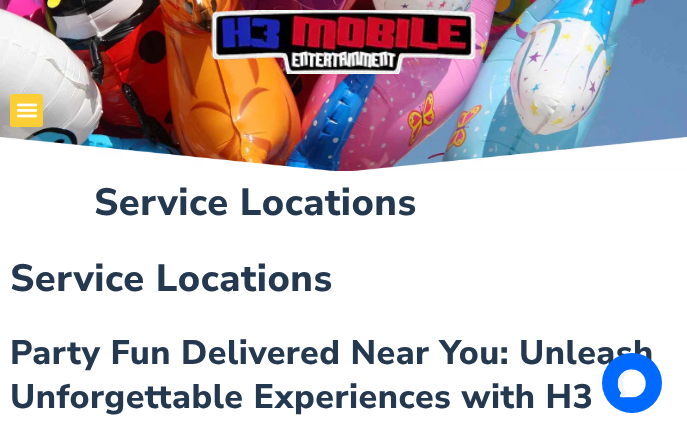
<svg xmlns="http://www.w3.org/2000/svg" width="687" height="438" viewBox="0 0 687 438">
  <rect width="100%" height="100%" fill="#ffffff"/>
  <image x="0" y="0" width="687" height="171" href="img1.png"/>
  <image x="211" y="10" width="265" height="64" href="img2.png"/>
  <rect x="10" y="94" width="33" height="33" rx="3" fill="#fcce36"/>
  <image x="16" y="103" width="22" height="15" href="img3.png"/>
  <image x="0" y="137" width="687" height="34" href="img4.png"/>
  <text x="94" y="215" font-family="Nunito Sans" font-size="38" font-weight="800" letter-spacing="0.5" fill="#24394f">Service Locations</text>
  <text x="10" y="291" font-family="Nunito Sans" font-size="38" font-weight="800" letter-spacing="0.5" fill="#24394f">Service Locations</text>
  <text x="10" y="364" font-family="Nunito Sans" font-size="34" font-weight="800" letter-spacing="0.5" fill="#24394f">Party Fun Delivered Near You: Unleash</text>
  <text x="10" y="408" font-family="Nunito Sans" font-size="34" font-weight="800" letter-spacing="0.5" fill="#24394f">Unforgettable Experiences with H3</text>
  <circle cx="632" cy="383" r="30" fill="#0069ff"/>
  <image x="617" y="369" width="29" height="29" href="img5.png"/>
</svg>
